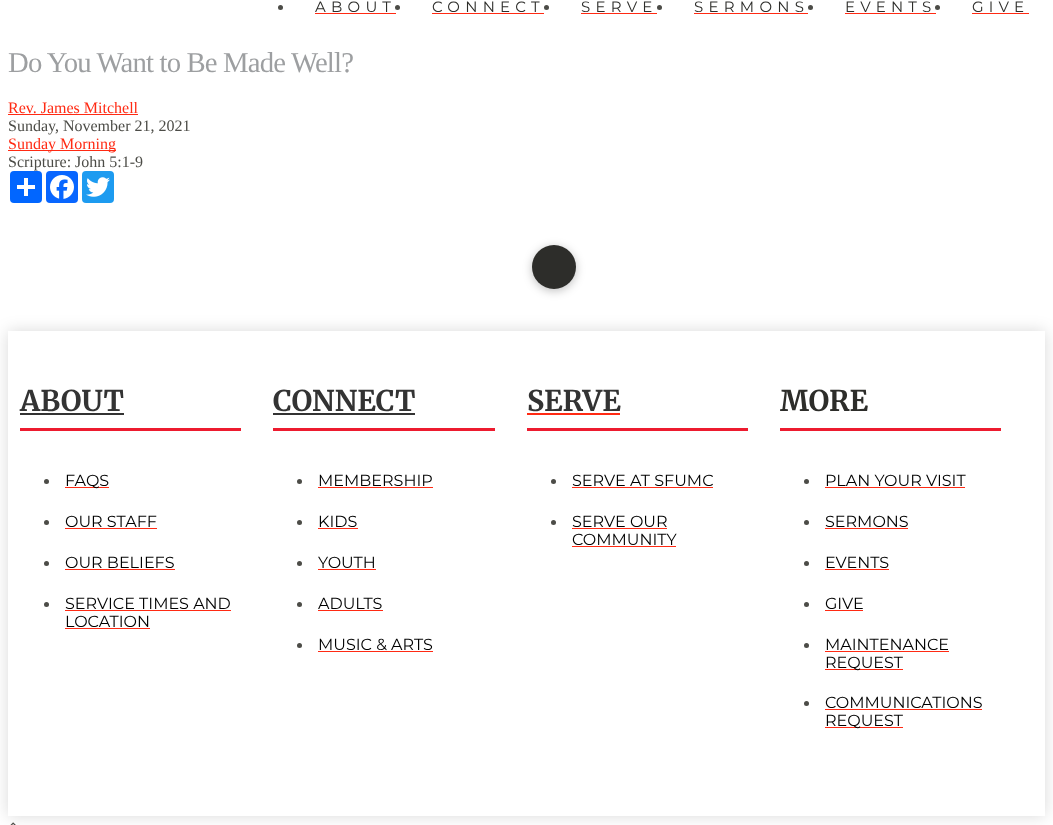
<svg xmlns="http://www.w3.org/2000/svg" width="1053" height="825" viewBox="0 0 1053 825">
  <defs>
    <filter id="blur1" x="-50%" y="-200%" width="200%" height="500%"><feGaussianBlur stdDeviation="5"/></filter>
    <clipPath id="clip1"><path d="M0 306H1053V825H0ZM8 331H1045V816H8Z" clip-rule="evenodd"/></clipPath>
    <filter id="blur2" x="-50%" y="-200%" width="200%" height="500%"><feGaussianBlur stdDeviation="8"/></filter>
  </defs>
  <rect width="100%" height="100%" fill="#ffffff"/>
  <circle cx="280.5" cy="7.5" r="2.5" fill="#4c4c47"/>
  <text x="315" y="12" font-family="Montserrat" font-size="15" letter-spacing="5.25" fill="#2d2d2a">ABOUT</text>
  <rect x="315" y="13" width="81" height="1" fill="#ff2a13"/>
  <circle cx="397.5" cy="7.5" r="2.5" fill="#4c4c47"/>
  <text x="432" y="12" font-family="Montserrat" font-size="15" letter-spacing="5.25" fill="#2d2d2a">CONNECT</text>
  <rect x="432" y="13" width="112" height="1" fill="#ff2a13"/>
  <circle cx="546.5" cy="7.5" r="2.5" fill="#4c4c47"/>
  <text x="581" y="12" font-family="Montserrat" font-size="15" letter-spacing="5.25" fill="#2d2d2a">SERVE</text>
  <rect x="581" y="13" width="76" height="1" fill="#ff2a13"/>
  <circle cx="659.5" cy="7.5" r="2.5" fill="#4c4c47"/>
  <text x="694" y="12" font-family="Montserrat" font-size="15" letter-spacing="5.25" fill="#2d2d2a">SERMONS</text>
  <rect x="694" y="13" width="114" height="1" fill="#ff2a13"/>
  <circle cx="810.5" cy="7.5" r="2.5" fill="#4c4c47"/>
  <text x="845" y="12" font-family="Montserrat" font-size="15" letter-spacing="5.25" fill="#2d2d2a">EVENTS</text>
  <rect x="845" y="13" width="91" height="1" fill="#ff2a13"/>
  <circle cx="937.5" cy="7.5" r="2.5" fill="#4c4c47"/>
  <text x="972" y="12" font-family="Montserrat" font-size="15" letter-spacing="5.25" fill="#2d2d2a">GIVE</text>
  <rect x="972" y="13" width="57" height="1" fill="#ff2a13"/>
  <text x="8" y="72" font-family="Liberation Serif" font-size="28.75" letter-spacing="-0.85" fill="#9d9fa1">Do You Want to Be Made Well?</text>
  <text x="8" y="113" font-family="Liberation Serif" font-size="16" fill="#ff2a13">Rev. James Mitchell</text>
  <rect x="8" y="114" width="130" height="1" fill="#ff2a13"/>
  <text x="8" y="131" font-family="Liberation Serif" font-size="16" fill="#4c4c47">Sunday, November 21, 2021</text>
  <rect x="8" y="150" width="108" height="1" fill="#ff2a13"/>
  <text x="8" y="149" font-family="Liberation Serif" font-size="16" fill="#ff2a13">Sunday Morning</text>
  <text x="8" y="167" font-family="Liberation Serif" font-size="16" fill="#4c4c47">Scripture: John 5:1-9</text>
  <rect x="10" y="171" width="32" height="32" rx="4" fill="#0166ff"/>
  <rect x="24" y="178" width="4" height="18" fill="#ffffff"/>
  <rect x="17" y="185" width="18" height="4" fill="#ffffff"/>
  <rect x="46" y="171" width="32" height="32" rx="4" fill="#0866ff"/>
  <image x="50" y="175" width="24" height="24" href="img1.png"/>
  <rect x="82" y="171" width="32" height="32" rx="4" fill="#1d9bf0"/>
  <image x="86" y="177" width="24" height="20" href="img2.png"/>
  <rect x="532" y="247" width="44" height="44" rx="22" fill="#000000" fill-opacity="0.25" filter="url(#blur1)"/>
  <circle cx="554" cy="267" r="22" fill="#2d2d2a"/>
  <g clip-path="url(#clip1)">
    <rect x="8" y="331" width="1037" height="485" fill="#000000" fill-opacity="0.15" filter="url(#blur2)"/>
  </g>
  <text x="20" y="411" font-family="Merriweather" font-size="28.5" font-weight="bold" fill="#333333">ABOUT</text>
  <rect x="20" y="413" width="104" height="2" fill="#333333"/>
  <rect x="20" y="428" width="221" height="3" fill="#ed1b2f"/>
  <circle cx="46.5" cy="481.5" r="2.5" fill="#4c4c47"/>
  <rect x="65" y="487" width="44" height="1" fill="#ff2a13"/>
  <text x="65" y="486" font-family="Montserrat" font-size="16" fill="#000000">FAQS</text>
  <circle cx="46.5" cy="522.5" r="2.5" fill="#4c4c47"/>
  <text x="65" y="527" font-family="Montserrat" font-size="16" fill="#000000">OUR STAFF</text>
  <rect x="65" y="528" width="92" height="1" fill="#ff2a13"/>
  <circle cx="46.5" cy="563.5" r="2.5" fill="#4c4c47"/>
  <text x="65" y="568" font-family="Montserrat" font-size="16" fill="#000000">OUR BELIEFS</text>
  <rect x="65" y="569" width="110" height="1" fill="#ff2a13"/>
  <circle cx="46.5" cy="604.5" r="2.5" fill="#4c4c47"/>
  <text x="65" y="609" font-family="Montserrat" font-size="16" fill="#000000">SERVICE TIMES AND</text>
  <rect x="65" y="610" width="166" height="1" fill="#ff2a13"/>
  <text x="65" y="627" font-family="Montserrat" font-size="16" fill="#000000">LOCATION</text>
  <rect x="65" y="628" width="85" height="1" fill="#ff2a13"/>
  <text x="273" y="411" font-family="Merriweather" font-size="28.5" font-weight="bold" fill="#333333">CONNECT</text>
  <rect x="273" y="413" width="142" height="2" fill="#333333"/>
  <rect x="273" y="428" width="222" height="3" fill="#ed1b2f"/>
  <circle cx="299.5" cy="481.5" r="2.5" fill="#4c4c47"/>
  <text x="318" y="486" font-family="Montserrat" font-size="16" fill="#000000">MEMBERSHIP</text>
  <rect x="318" y="487" width="115" height="1" fill="#ff2a13"/>
  <circle cx="299.5" cy="522.5" r="2.5" fill="#4c4c47"/>
  <text x="318" y="527" font-family="Montserrat" font-size="16" fill="#000000">KIDS</text>
  <rect x="318" y="528" width="40" height="1" fill="#ff2a13"/>
  <circle cx="299.5" cy="563.5" r="2.5" fill="#4c4c47"/>
  <text x="318" y="568" font-family="Montserrat" font-size="16" fill="#000000">YOUTH</text>
  <rect x="318" y="569" width="58" height="1" fill="#ff2a13"/>
  <circle cx="299.5" cy="604.5" r="2.5" fill="#4c4c47"/>
  <text x="318" y="609" font-family="Montserrat" font-size="16" fill="#000000">ADULTS</text>
  <rect x="318" y="610" width="65" height="1" fill="#ff2a13"/>
  <circle cx="299.5" cy="645.5" r="2.5" fill="#4c4c47"/>
  <text x="318" y="650" font-family="Montserrat" font-size="16" fill="#000000">MUSIC &amp; ARTS</text>
  <rect x="318" y="651" width="115" height="1" fill="#ff2a13"/>
  <text x="527" y="411" font-family="Merriweather" font-size="28.5" font-weight="bold" fill="#333333">SERVE</text>
  <rect x="527" y="413" width="93" height="2" fill="#ff2a13"/>
  <rect x="527" y="428" width="221" height="3" fill="#ed1b2f"/>
  <circle cx="553.5" cy="481.5" r="2.5" fill="#4c4c47"/>
  <text x="572" y="486" font-family="Montserrat" font-size="16" fill="#000000">SERVE AT SFUMC</text>
  <rect x="572" y="487" width="141" height="1" fill="#ff2a13"/>
  <circle cx="553.5" cy="522.5" r="2.5" fill="#4c4c47"/>
  <text x="572" y="527" font-family="Montserrat" font-size="16" fill="#000000">SERVE OUR</text>
  <rect x="572" y="528" width="95" height="1" fill="#ff2a13"/>
  <text x="572" y="545" font-family="Montserrat" font-size="16" fill="#000000">COMMUNITY</text>
  <rect x="572" y="546" width="104" height="1" fill="#ff2a13"/>
  <text x="780" y="411" font-family="Merriweather" font-size="28.5" font-weight="bold" fill="#2d2d2a">MORE</text>
  <rect x="780" y="428" width="221" height="3" fill="#ed1b2f"/>
  <circle cx="806.5" cy="481.5" r="2.5" fill="#4c4c47"/>
  <text x="825" y="486" font-family="Montserrat" font-size="16" fill="#000000">PLAN YOUR VISIT</text>
  <rect x="825" y="487" width="140" height="1" fill="#ff2a13"/>
  <circle cx="806.5" cy="522.5" r="2.5" fill="#4c4c47"/>
  <text x="825" y="527" font-family="Montserrat" font-size="16" fill="#000000">SERMONS</text>
  <rect x="825" y="528" width="83" height="1" fill="#ff2a13"/>
  <circle cx="806.5" cy="563.5" r="2.5" fill="#4c4c47"/>
  <text x="825" y="568" font-family="Montserrat" font-size="16" fill="#000000">EVENTS</text>
  <rect x="825" y="569" width="64" height="1" fill="#ff2a13"/>
  <circle cx="806.5" cy="604.5" r="2.5" fill="#4c4c47"/>
  <text x="825" y="609" font-family="Montserrat" font-size="16" fill="#000000">GIVE</text>
  <rect x="825" y="610" width="38" height="1" fill="#ff2a13"/>
  <circle cx="806.5" cy="645.5" r="2.5" fill="#4c4c47"/>
  <text x="825" y="650" font-family="Montserrat" font-size="16" fill="#000000">MAINTENANCE</text>
  <rect x="825" y="651" width="124" height="1" fill="#ff2a13"/>
  <rect x="825" y="669" width="78" height="1" fill="#ff2a13"/>
  <text x="825" y="668" font-family="Montserrat" font-size="16" fill="#000000">REQUEST</text>
  <circle cx="806.5" cy="703.5" r="2.5" fill="#4c4c47"/>
  <text x="825" y="708" font-family="Montserrat" font-size="16" fill="#000000">COMMUNICATIONS</text>
  <rect x="825" y="709" width="157" height="1" fill="#ff2a13"/>
  <rect x="825" y="727" width="78" height="1" fill="#ff2a13"/>
  <text x="825" y="726" font-family="Montserrat" font-size="16" fill="#000000">REQUEST</text>
  <image x="10" y="822" width="6" height="3" href="img3.png"/>
</svg>
